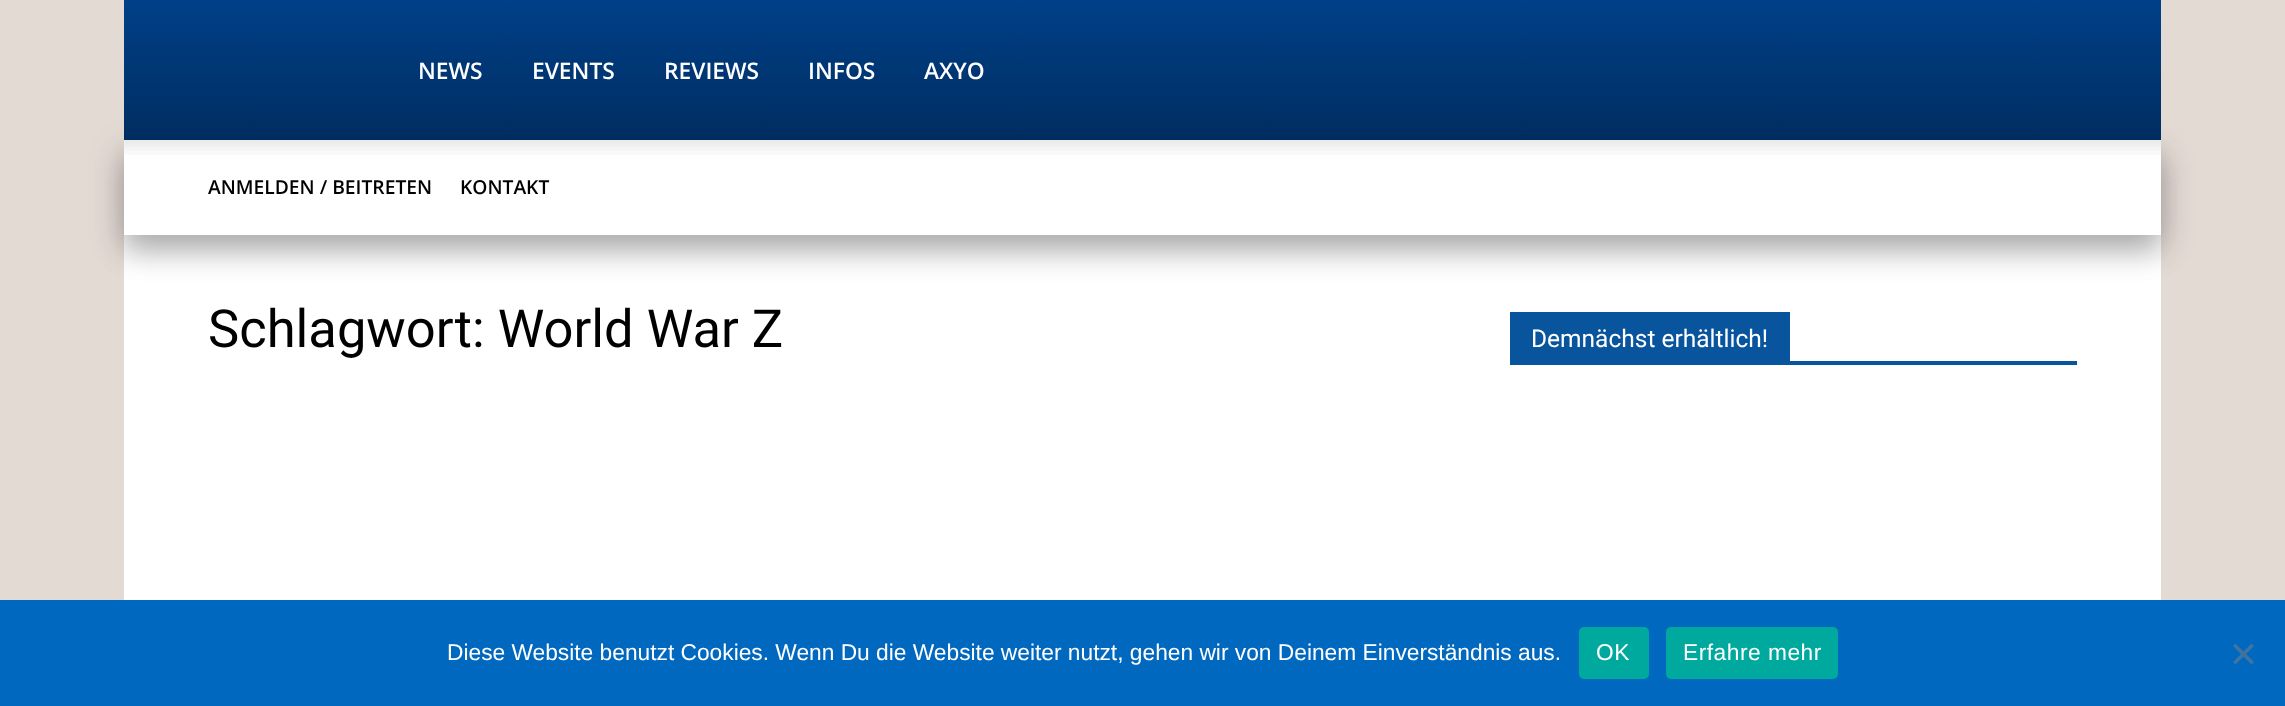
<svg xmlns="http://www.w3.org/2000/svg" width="2285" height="706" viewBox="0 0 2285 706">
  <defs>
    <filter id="blur1" x="-50%" y="-200%" width="200%" height="500%"><feGaussianBlur stdDeviation="17.5"/></filter>
    <filter id="blur2" x="-50%" y="-200%" width="200%" height="500%"><feGaussianBlur stdDeviation="14"/></filter>
    <linearGradient id="g1" gradientUnits="userSpaceOnUse" x1="1143" y1="0" x2="1143" y2="140"><stop offset="0" stop-color="#004088"/><stop offset="1" stop-color="#002d60"/></linearGradient>
  </defs>
  <rect width="100%" height="100%" fill="#e3dad4"/>
  <rect x="124" y="235" width="2037" height="365" fill="#ffffff"/>
  <rect x="124" y="151" width="2037" height="94" fill="#000000" fill-opacity="0.19" filter="url(#blur1)"/>
  <rect x="124" y="158" width="2037" height="94" fill="#000000" fill-opacity="0.2" filter="url(#blur2)"/>
  <rect x="124" y="0" width="2037" height="140" fill="url(#g1)"/>
  <text x="418" y="79" font-family="Open Sans" font-size="22.75" font-weight="600" fill="#ffffff">NEWS</text>
  <text x="532" y="79" font-family="Open Sans" font-size="22.75" font-weight="600" fill="#ffffff">EVENTS</text>
  <text x="664" y="79" font-family="Open Sans" font-size="22.75" font-weight="600" fill="#ffffff">REVIEWS</text>
  <text x="808" y="79" font-family="Open Sans" font-size="22.75" font-weight="600" fill="#ffffff">INFOS</text>
  <text x="924" y="79" font-family="Open Sans" font-size="22.75" font-weight="600" fill="#ffffff">AXYO</text>
  <rect x="124" y="140" width="2037" height="95" fill="#ffffff"/>
  <image x="124" y="140" width="2037" height="15" href="img1.png"/>
  <text x="208" y="194" font-family="Open Sans" font-size="19.25" font-weight="600" fill="#000000">ANMELDEN / BEITRETEN</text>
  <text x="460" y="194" font-family="Open Sans" font-size="19.25" font-weight="600" fill="#000000">KONTAKT</text>
  <text x="208" y="347" font-family="Roboto" font-size="52.5" fill="#000000">Schlagwort: World War Z</text>
  <rect x="1510" y="361" width="567" height="4" fill="#08549d"/>
  <rect x="1510" y="312" width="280" height="49" fill="#08549d"/>
  <text x="1531" y="347" font-family="Roboto" font-size="24.5" fill="#ffffff">Demnächst erhältlich!</text>
  <rect x="0" y="600" width="2285" height="106" fill="#0068bf"/>
  <text x="447" y="660" font-family="Liberation Sans" font-size="22.75" fill="#ffffff">Diese Website benutzt Cookies. Wenn Du die Website weiter nutzt, gehen wir von Deinem Einverständnis aus.</text>
  <rect x="1579" y="627" width="70" height="52" rx="5" fill="#00a99d"/>
  <text x="1596" y="660" font-family="Liberation Sans" font-size="22.75" letter-spacing="0.5" fill="#ffffff">OK</text>
  <rect x="1666" y="627" width="172" height="52" rx="5" fill="#00a99d"/>
  <text x="1683" y="660" font-family="Liberation Sans" font-size="22.75" letter-spacing="0.5" fill="#ffffff">Erfahre mehr</text>
  <path d="M2251.5 643.5L2254 646L2235.5 664.5L2233 662Z" fill="#4074a0"/>
  <path d="M2233 646L2235.5 643.5L2254 662L2251.5 664.5Z" fill="#4074a0"/>
</svg>
